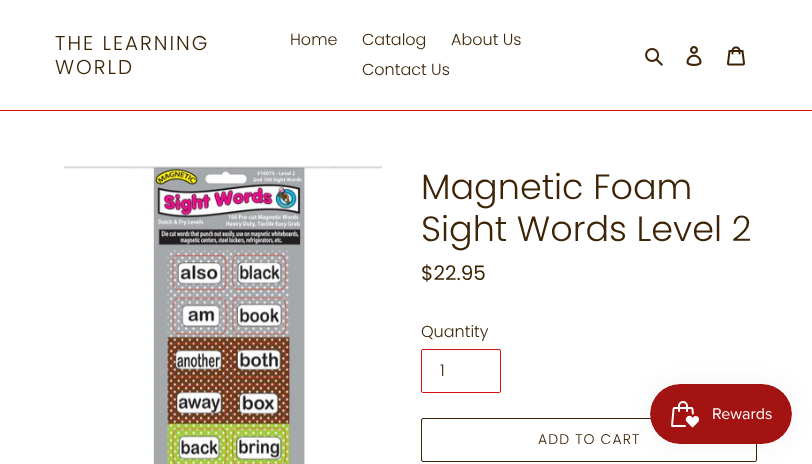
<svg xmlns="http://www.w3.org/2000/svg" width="812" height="464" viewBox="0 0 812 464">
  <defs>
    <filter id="blur1" x="-50%" y="-200%" width="200%" height="500%"><feGaussianBlur stdDeviation="12.5"/></filter>
  </defs>
  <rect width="100%" height="100%" fill="#ffffff"/>
  <rect x="0" y="110" width="812" height="1" fill="#d51010"/>
  <text x="55" y="50" font-family="Poppins" font-size="20" font-weight="300" letter-spacing="2" fill="#3d2407">THE LEARNING</text>
  <text x="55" y="74" font-family="Poppins" font-size="20" font-weight="300" letter-spacing="2" fill="#3d2407">WORLD</text>
  <text x="290" y="45" font-family="Poppins" font-size="16" font-weight="300" fill="#3d2407">Home</text>
  <text x="362" y="45" font-family="Poppins" font-size="16" font-weight="300" fill="#3d2407">Catalog</text>
  <text x="451" y="45" font-family="Poppins" font-size="16" font-weight="300" fill="#3d2407">About Us</text>
  <text x="362" y="75" font-family="Poppins" font-size="16" font-weight="300" fill="#3d2407">Contact Us</text>
  <image x="645" y="48" width="18" height="18" href="img1.png"/>
  <image x="686" y="46" width="16" height="20" href="img2.png"/>
  <image x="727" y="46" width="18" height="20" href="img3.png"/>
  <image x="64" y="166" width="318" height="298" href="img4.png"/>
  <text x="421" y="199" font-family="Poppins" font-size="35" font-weight="300" fill="#3d2407">Magnetic Foam</text>
  <text x="421" y="241" font-family="Poppins" font-size="35" font-weight="300" fill="#3d2407">Sight Words Level 2</text>
  <text x="421" y="280" font-family="Poppins" font-size="20" fill="#3d2407">$22.95</text>
  <text x="421" y="337" font-family="Poppins" font-size="16" font-weight="300" fill="#3d2407">Quantity</text>
  <rect x="421.5" y="349.5" width="79" height="43" rx="1.5" fill="none" stroke="#d51010"/>
  <text x="440" y="376" font-family="Poppins" font-size="16" font-weight="300" fill="#3d2407">1</text>
  <rect x="421.5" y="418.5" width="335" height="43" rx="1.5" fill="none" stroke="#3d2407"/>
  <text x="538" y="444" font-family="Poppins" font-size="14" font-weight="300" letter-spacing="1.1" fill="#3d2407">ADD TO CART</text>
  <rect x="650" y="384" width="142" height="60" rx="30" fill="#000000" fill-opacity="0.05" filter="url(#blur1)"/>
  <image x="650" y="384" width="142" height="60" href="img5.png"/>
</svg>
